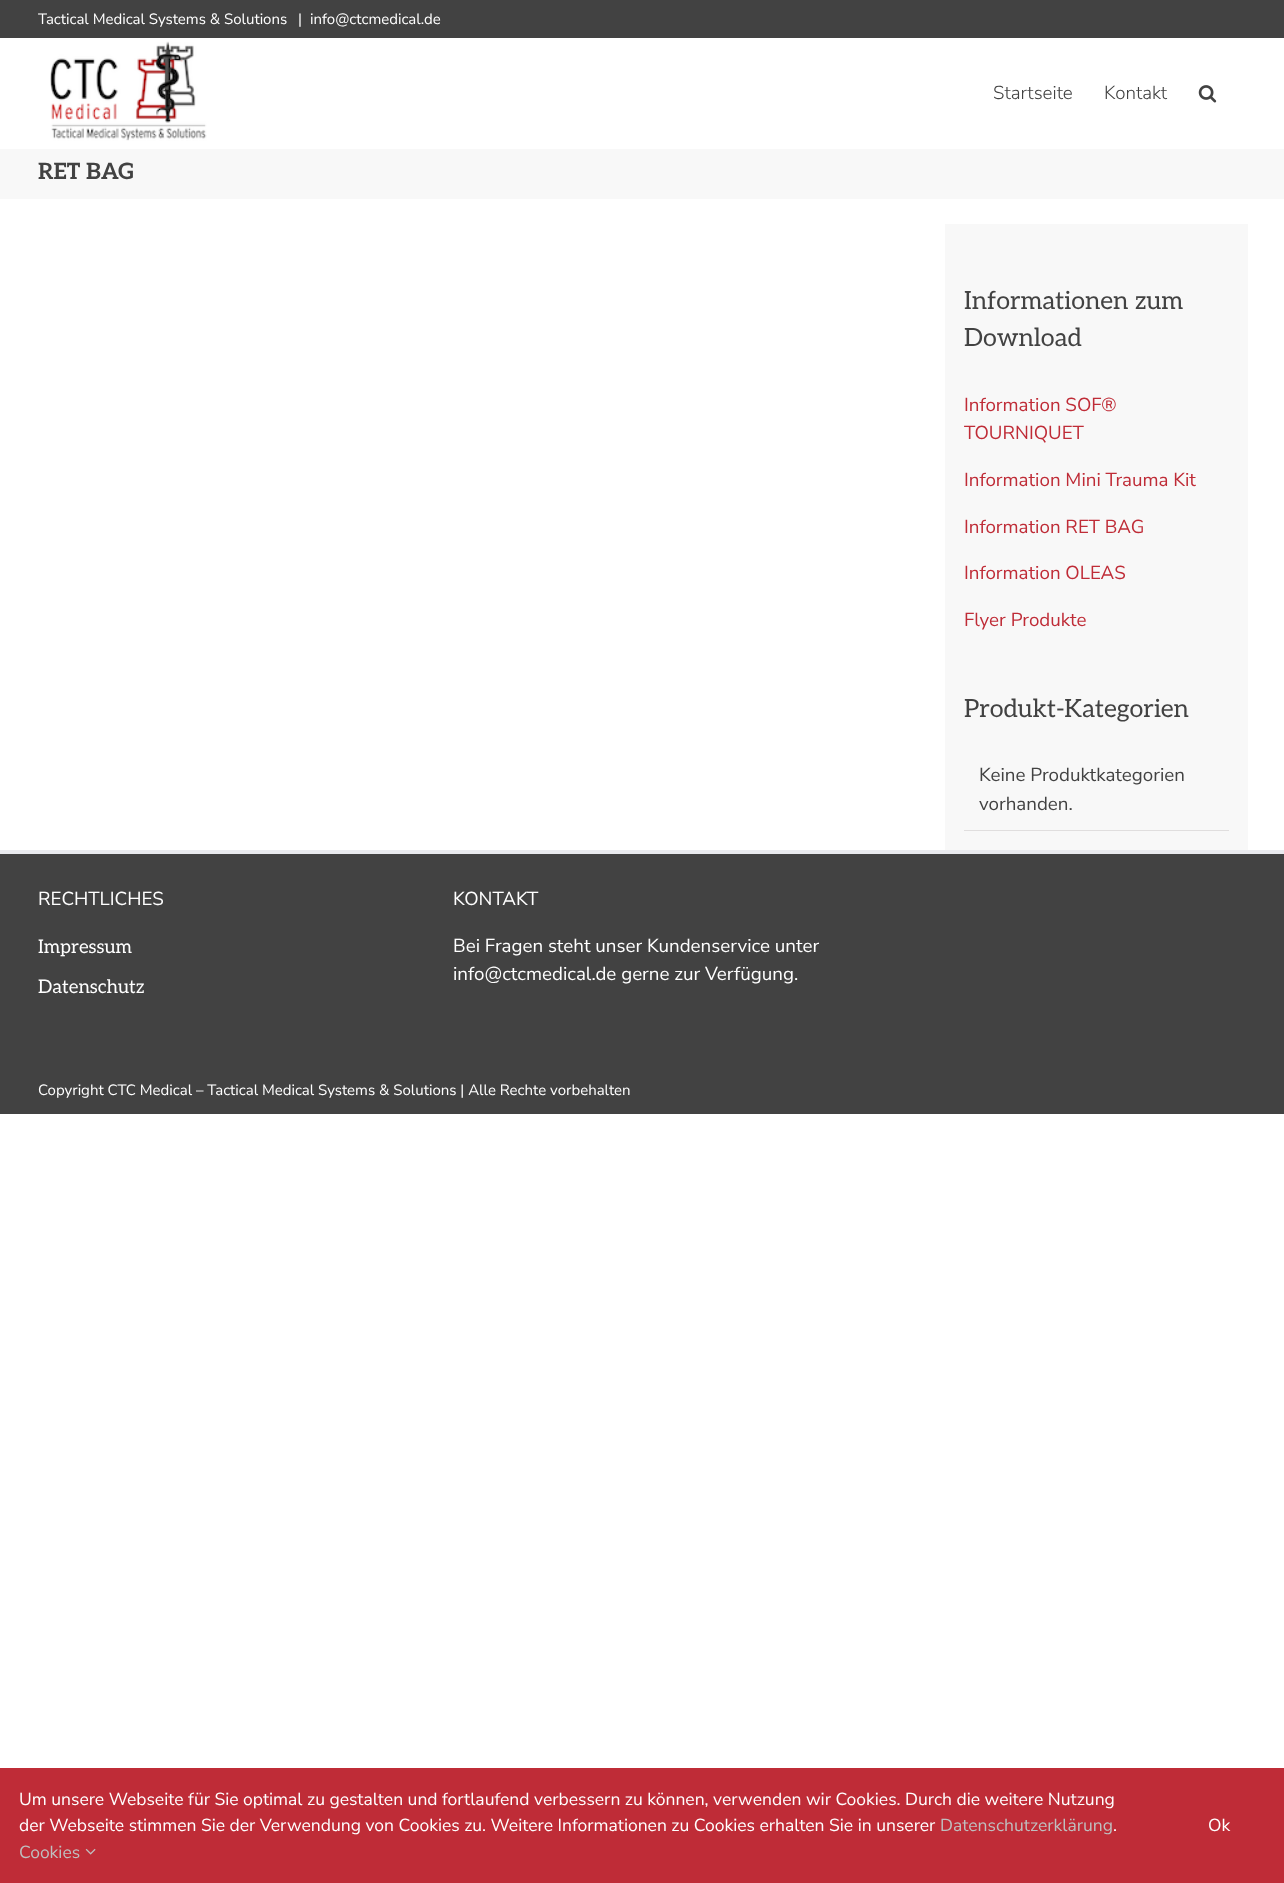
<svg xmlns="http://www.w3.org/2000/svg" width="1284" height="1883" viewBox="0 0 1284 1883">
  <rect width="100%" height="100%" fill="#ffffff"/>
  <rect x="0" y="0" width="1284" height="38" fill="#424242"/>
  <text x="38" y="24" font-family="Nunito Sans" font-size="15" fill="#ffffff">Tactical Medical Systems &amp; Solutions</text>
  <text x="298" y="24" font-family="Nunito Sans" font-size="15" fill="#ffffff">|</text>
  <text x="310" y="24" font-family="Nunito Sans" font-size="15" fill="#ffffff">info@ctcmedical.de</text>
  <image x="50" y="41" width="157" height="100" href="img1.png"/>
  <text x="993" y="99" font-family="Nunito Sans" font-size="18.75" font-weight="300" fill="#424242">Startseite</text>
  <text x="1104" y="99" font-family="Nunito Sans" font-size="18.75" font-weight="300" fill="#424242">Kontakt</text>
  <image x="1198" y="85" width="19" height="18" href="img2.png"/>
  <rect x="0" y="149" width="1284" height="50" fill="#f8f8f8"/>
  <text x="38" y="179" font-family="Aleo" font-size="22.5" font-weight="bold" fill="#424242">RET BAG</text>
  <rect x="945" y="224" width="303" height="626" fill="#f8f8f8"/>
  <text x="964" y="309" font-family="Aleo" font-size="25" fill="#424242">Informationen zum</text>
  <text x="964" y="346" font-family="Aleo" font-size="25" fill="#424242">Download</text>
  <text x="964" y="411" font-family="Nunito Sans" font-size="18.75" fill="#bf2c37">Information SOF®</text>
  <text x="964" y="439" font-family="Nunito Sans" font-size="18.75" fill="#bf2c37">TOURNIQUET</text>
  <text x="964" y="486" font-family="Nunito Sans" font-size="18.75" fill="#bf2c37">Information Mini Trauma Kit</text>
  <text x="964" y="533" font-family="Nunito Sans" font-size="18.75" fill="#bf2c37">Information RET BAG</text>
  <text x="964" y="579" font-family="Nunito Sans" font-size="18.75" fill="#bf2c37">Information OLEAS</text>
  <text x="964" y="626" font-family="Nunito Sans" font-size="18.75" fill="#bf2c37">Flyer Produkte</text>
  <text x="964" y="717" font-family="Aleo" font-size="25" fill="#424242">Produkt-Kategorien</text>
  <rect x="964" y="830" width="265" height="1" fill="#e0dede"/>
  <text x="979" y="781" font-family="Nunito Sans" font-size="18.75" fill="#424242">Keine Produktkategorien</text>
  <text x="979" y="810" font-family="Nunito Sans" font-size="18.75" fill="#424242">vorhanden.</text>
  <rect x="0" y="854" width="1284" height="260" fill="#424242"/>
  <rect x="0" y="850" width="1284" height="4" fill="#e9eaee"/>
  <text x="38" y="905" font-family="Nunito Sans" font-size="18.75" fill="#ffffff">RECHTLICHES</text>
  <text x="38" y="953" font-family="Aleo" font-size="18.75" fill="#ffffff">Impressum</text>
  <text x="38" y="993" font-family="Aleo" font-size="18.75" fill="#ffffff">Datenschutz</text>
  <text x="453" y="905" font-family="Nunito Sans" font-size="18.75" fill="#ffffff">KONTAKT</text>
  <text x="453" y="952" font-family="Nunito Sans" font-size="18.75" fill="#ffffff">Bei Fragen steht unser Kundenservice unter</text>
  <text x="453" y="980" font-family="Nunito Sans" font-size="18.75" fill="#ffffff">info@ctcmedical.de gerne zur Verfügung.</text>
  <text x="38" y="1095" font-family="Nunito Sans" font-size="15" fill="#ffffff">Copyright CTC Medical – Tactical Medical Systems &amp; Solutions | Alle Rechte vorbehalten</text>
  <rect x="0" y="1768" width="1284" height="115" fill="#bf2c37"/>
  <text x="19" y="1805" font-family="Nunito Sans" font-size="17.5" fill="#ffffff">Um unsere Webseite für Sie optimal zu gestalten und fortlaufend verbessern zu können, verwenden wir Cookies. Durch die weitere Nutzung</text>
  <text x="19" y="1831" font-family="Nunito Sans" font-size="17.5" fill="#ffffff">der Webseite stimmen Sie der Verwendung von Cookies zu. Weitere Informationen zu Cookies erhalten Sie in unserer</text>
  <text x="940" y="1831" font-family="Nunito Sans" font-size="17.5" fill="#bfbfbf">Datenschutzerklärung</text>
  <text x="1113" y="1831" font-family="Nunito Sans" font-size="17.5" fill="#ffffff">.</text>
  <text x="19" y="1858" font-family="Nunito Sans" font-size="17.5" fill="#bfbfbf">Cookies</text>
  <image x="85" y="1848" width="11" height="7" href="img3.png"/>
  <text x="1208" y="1831" font-family="Nunito Sans" font-size="17.5" fill="#ffffff">Ok</text>
</svg>
